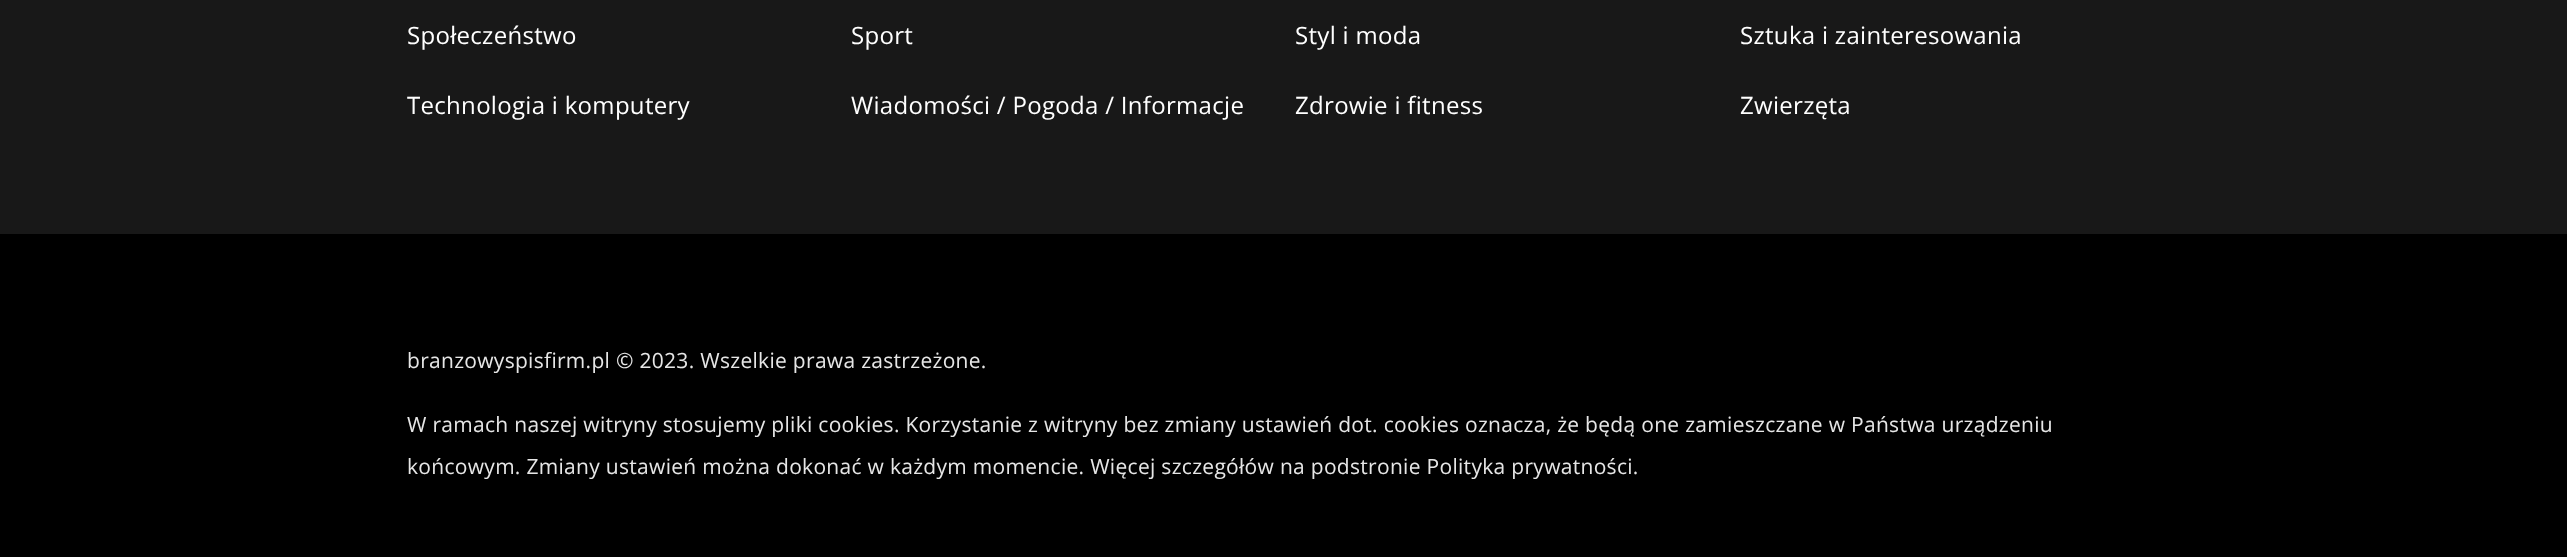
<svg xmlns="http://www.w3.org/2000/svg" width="2567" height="557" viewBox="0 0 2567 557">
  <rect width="100%" height="100%" fill="#000000"/>
  <rect x="0" y="0" width="2567" height="234" fill="#181818"/>
  <text x="407" y="44" font-family="Open Sans" font-size="24" letter-spacing="0.3" fill="#ffffff">Społeczeństwo</text>
  <text x="851" y="44" font-family="Open Sans" font-size="24" letter-spacing="0.3" fill="#ffffff">Sport</text>
  <text x="1295" y="44" font-family="Open Sans" font-size="24" letter-spacing="0.3" fill="#ffffff">Styl i moda</text>
  <text x="1740" y="44" font-family="Open Sans" font-size="24" letter-spacing="0.3" fill="#ffffff">Sztuka i zainteresowania</text>
  <text x="407" y="114" font-family="Open Sans" font-size="24" letter-spacing="0.3" fill="#ffffff">Technologia i komputery</text>
  <text x="851" y="114" font-family="Open Sans" font-size="24" letter-spacing="0.3" fill="#ffffff">Wiadomości / Pogoda / Informacje</text>
  <text x="1295" y="114" font-family="Open Sans" font-size="24" letter-spacing="0.3" fill="#ffffff">Zdrowie i fitness</text>
  <text x="1740" y="114" font-family="Open Sans" font-size="24" letter-spacing="0.3" fill="#ffffff">Zwierzęta</text>
  <text x="407" y="368" font-family="Open Sans" font-size="21" letter-spacing="0.3" fill="#e6e6e6">branzowyspisfirm.pl © 2023. Wszelkie prawa zastrzeżone.</text>
  <text x="407" y="432" font-family="Open Sans" font-size="21" letter-spacing="0.3" fill="#e6e6e6">W ramach naszej witryny stosujemy pliki cookies. Korzystanie z witryny bez zmiany ustawień dot. cookies oznacza, że będą one zamieszczane w Państwa urządzeniu</text>
  <text x="407" y="474" font-family="Open Sans" font-size="21" letter-spacing="0.3" fill="#e6e6e6">końcowym. Zmiany ustawień można dokonać w każdym momencie. Więcej szczegółów na podstronie Polityka prywatności.</text>
</svg>
